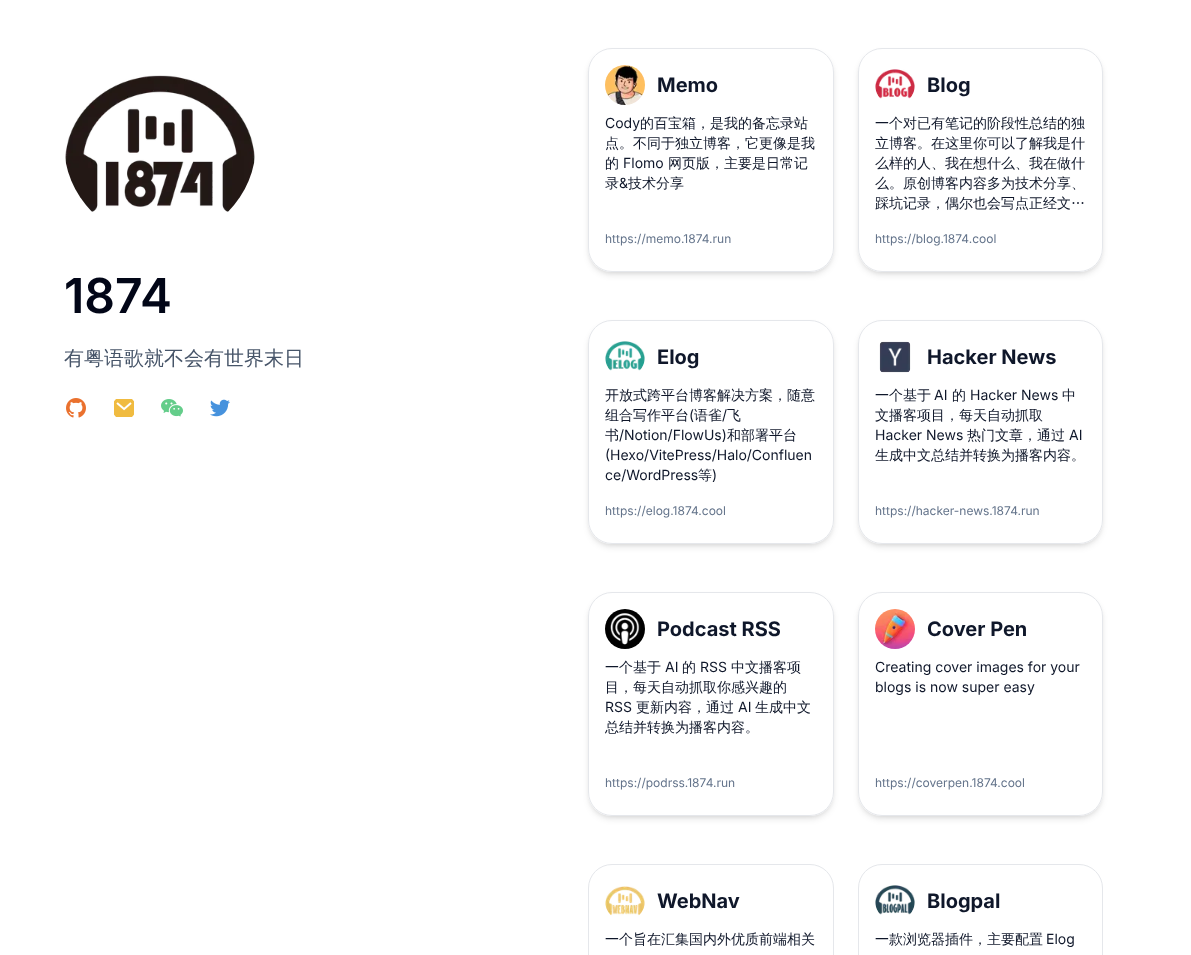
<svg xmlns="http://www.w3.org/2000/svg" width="1191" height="955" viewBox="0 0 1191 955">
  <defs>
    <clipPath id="clip1"><path d="M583 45H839V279H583ZM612 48H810C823.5 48 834 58.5 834 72V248C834 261.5 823.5 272 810 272H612C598.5 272 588 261.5 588 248V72C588 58.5 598.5 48 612 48Z" clip-rule="evenodd"/></clipPath>
    <filter id="blur1" x="-50%" y="-200%" width="200%" height="500%"><feGaussianBlur stdDeviation="2"/></filter>
    <clipPath id="clip2"><path d="M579 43H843V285H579ZM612 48H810C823.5 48 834 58.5 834 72V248C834 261.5 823.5 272 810 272H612C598.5 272 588 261.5 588 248V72C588 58.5 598.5 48 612 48Z" clip-rule="evenodd"/></clipPath>
    <filter id="blur2" x="-50%" y="-200%" width="200%" height="500%"><feGaussianBlur stdDeviation="3"/></filter>
    <clipPath id="clip3"><path d="M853 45H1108V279H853ZM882 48H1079C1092.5 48 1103 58.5 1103 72V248C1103 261.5 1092.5 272 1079 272H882C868.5 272 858 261.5 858 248V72C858 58.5 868.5 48 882 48Z" clip-rule="evenodd"/></clipPath>
    <clipPath id="clip4"><path d="M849 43H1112V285H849ZM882 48H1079C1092.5 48 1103 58.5 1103 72V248C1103 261.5 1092.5 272 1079 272H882C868.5 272 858 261.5 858 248V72C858 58.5 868.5 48 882 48Z" clip-rule="evenodd"/></clipPath>
    <clipPath id="clip5"><path d="M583 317H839V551H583ZM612 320H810C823.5 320 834 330.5 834 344V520C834 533.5 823.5 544 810 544H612C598.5 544 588 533.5 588 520V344C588 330.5 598.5 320 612 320Z" clip-rule="evenodd"/></clipPath>
    <clipPath id="clip6"><path d="M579 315H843V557H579ZM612 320H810C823.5 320 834 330.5 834 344V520C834 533.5 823.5 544 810 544H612C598.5 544 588 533.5 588 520V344C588 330.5 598.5 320 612 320Z" clip-rule="evenodd"/></clipPath>
    <clipPath id="clip7"><path d="M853 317H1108V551H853ZM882 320H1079C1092.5 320 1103 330.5 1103 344V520C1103 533.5 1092.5 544 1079 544H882C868.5 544 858 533.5 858 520V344C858 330.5 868.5 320 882 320Z" clip-rule="evenodd"/></clipPath>
    <clipPath id="clip8"><path d="M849 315H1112V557H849ZM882 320H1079C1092.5 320 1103 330.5 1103 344V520C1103 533.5 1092.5 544 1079 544H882C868.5 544 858 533.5 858 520V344C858 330.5 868.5 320 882 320Z" clip-rule="evenodd"/></clipPath>
    <clipPath id="clip9"><path d="M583 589H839V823H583ZM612 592H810C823.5 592 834 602.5 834 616V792C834 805.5 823.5 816 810 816H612C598.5 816 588 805.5 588 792V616C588 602.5 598.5 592 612 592Z" clip-rule="evenodd"/></clipPath>
    <clipPath id="clip10"><path d="M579 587H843V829H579ZM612 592H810C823.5 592 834 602.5 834 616V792C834 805.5 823.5 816 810 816H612C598.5 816 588 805.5 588 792V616C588 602.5 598.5 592 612 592Z" clip-rule="evenodd"/></clipPath>
    <clipPath id="clip11"><path d="M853 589H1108V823H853ZM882 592H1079C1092.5 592 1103 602.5 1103 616V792C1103 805.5 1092.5 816 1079 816H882C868.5 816 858 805.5 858 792V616C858 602.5 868.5 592 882 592Z" clip-rule="evenodd"/></clipPath>
    <clipPath id="clip12"><path d="M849 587H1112V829H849ZM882 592H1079C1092.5 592 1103 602.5 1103 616V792C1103 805.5 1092.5 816 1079 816H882C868.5 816 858 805.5 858 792V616C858 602.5 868.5 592 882 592Z" clip-rule="evenodd"/></clipPath>
  </defs>
  <rect width="100%" height="100%" fill="#ffffff"/>
  <image x="65" y="75" width="190" height="137" href="img1.png"/>
  <text x="64" y="313" font-family="Inter" font-size="48" font-weight="600" fill="#020617">1874</text>
  <text x="64" y="365" font-family="WenQuanYi Zen Hei" font-size="20" font-weight="500" fill="#475569">有粤语歌就不会有世界末日</text>
  <image x="66" y="398" width="20" height="20" href="img2.png"/>
  <image x="114" y="399" width="20" height="18" href="img3.png"/>
  <image x="161" y="399" width="22" height="18" href="img4.png"/>
  <image x="210" y="399" width="20" height="18" href="img5.png"/>
  <g clip-path="url(#clip1)">
    <rect x="590" y="52" width="242" height="220" rx="22" fill="#000000" fill-opacity="0.1" filter="url(#blur1)"/>
  </g>
  <g clip-path="url(#clip2)">
    <rect x="589" y="53" width="244" height="222" rx="23" fill="#000000" fill-opacity="0.1" filter="url(#blur2)"/>
  </g>
  <rect x="588.5" y="48.5" width="245" height="223" rx="23.5" fill="none" stroke="#e5e7eb"/>
  <image x="605" y="65" width="40" height="40" href="img6.png"/>
  <text x="657" y="92" font-family="Inter" font-size="20" font-weight="bold" fill="#0f172a">Memo</text>
  <text x="605" y="128" font-family="Inter" font-size="14" fill="#0f172a">Cody</text>
  <text x="640" y="128" font-family="WenQuanYi Zen Hei" font-size="14" font-weight="500" fill="#0f172a">的百宝箱，是我的备忘录站</text>
  <text x="605" y="148" font-family="WenQuanYi Zen Hei" font-size="14" font-weight="500" fill="#0f172a">点。不同于独立博客，它更像是我</text>
  <text x="605" y="168" font-family="WenQuanYi Zen Hei" font-size="14" font-weight="500" fill="#0f172a">的</text>
  <text x="623" y="168" font-family="Inter" font-size="14" fill="#0f172a">Flomo</text>
  <text x="668" y="168" font-family="WenQuanYi Zen Hei" font-size="14" font-weight="500" fill="#0f172a">网页版，主要是日常记</text>
  <text x="605" y="188" font-family="WenQuanYi Zen Hei" font-size="14" font-weight="500" fill="#0f172a">录</text>
  <text x="619" y="188" font-family="Inter" font-size="14" fill="#0f172a">&amp;</text>
  <text x="628" y="188" font-family="WenQuanYi Zen Hei" font-size="14" font-weight="500" fill="#0f172a">技术分享</text>
  <text x="605" y="243" font-family="Inter" font-size="12" fill="#64748b">https://memo.1874.run</text>
  <g clip-path="url(#clip3)">
    <rect x="860" y="52" width="241" height="220" rx="22" fill="#000000" fill-opacity="0.1" filter="url(#blur1)"/>
  </g>
  <g clip-path="url(#clip4)">
    <rect x="859" y="53" width="243" height="222" rx="23" fill="#000000" fill-opacity="0.1" filter="url(#blur2)"/>
  </g>
  <rect x="858.5" y="48.5" width="244" height="223" rx="23.5" fill="none" stroke="#e5e7eb"/>
  <image x="875" y="69" width="40" height="30" href="img7.png"/>
  <text x="927" y="92" font-family="Inter" font-size="20" font-weight="bold" fill="#0f172a">Blog</text>
  <text x="875" y="128" font-family="WenQuanYi Zen Hei" font-size="14" font-weight="500" fill="#0f172a">一个对已有笔记的阶段性总结的独</text>
  <text x="875" y="148" font-family="WenQuanYi Zen Hei" font-size="14" font-weight="500" fill="#0f172a">立博客。在这里你可以了解我是什</text>
  <text x="875" y="168" font-family="WenQuanYi Zen Hei" font-size="14" font-weight="500" fill="#0f172a">么样的人、我在想什么、我在做什</text>
  <text x="875" y="188" font-family="WenQuanYi Zen Hei" font-size="14" font-weight="500" fill="#0f172a">么。原创博客内容多为技术分享、</text>
  <text x="875" y="208" font-family="WenQuanYi Zen Hei" font-size="14" font-weight="500" fill="#0f172a">踩坑记录，偶尔也会写点正经文…</text>
  <text x="875" y="243" font-family="Inter" font-size="12" fill="#64748b">https://blog.1874.cool</text>
  <g clip-path="url(#clip5)">
    <rect x="590" y="324" width="242" height="220" rx="22" fill="#000000" fill-opacity="0.1" filter="url(#blur1)"/>
  </g>
  <g clip-path="url(#clip6)">
    <rect x="589" y="325" width="244" height="222" rx="23" fill="#000000" fill-opacity="0.1" filter="url(#blur2)"/>
  </g>
  <rect x="588.5" y="320.5" width="245" height="223" rx="23.5" fill="none" stroke="#e5e7eb"/>
  <image x="605" y="341" width="40" height="30" href="img8.png"/>
  <text x="657" y="364" font-family="Inter" font-size="20" font-weight="bold" fill="#0f172a">Elog</text>
  <text x="605" y="400" font-family="WenQuanYi Zen Hei" font-size="14" font-weight="500" fill="#0f172a">开放式跨平台博客解决方案，随意</text>
  <text x="605" y="420" font-family="WenQuanYi Zen Hei" font-size="14" font-weight="500" fill="#0f172a">组合写作平台</text>
  <text x="689" y="420" font-family="Inter" font-size="14" fill="#0f172a">(</text>
  <text x="694" y="420" font-family="WenQuanYi Zen Hei" font-size="14" font-weight="500" fill="#0f172a">语雀</text>
  <text x="722" y="420" font-family="Inter" font-size="14" fill="#0f172a">/</text>
  <text x="727" y="420" font-family="WenQuanYi Zen Hei" font-size="14" font-weight="500" fill="#0f172a">飞</text>
  <text x="605" y="440" font-family="WenQuanYi Zen Hei" font-size="14" font-weight="500" fill="#0f172a">书</text>
  <text x="619" y="440" font-family="Inter" font-size="14" fill="#0f172a">/Notion/FlowUs)</text>
  <text x="727" y="440" font-family="WenQuanYi Zen Hei" font-size="14" font-weight="500" fill="#0f172a">和部署平台</text>
  <text x="605" y="460" font-family="Inter" font-size="14" fill="#0f172a">(Hexo/VitePress/Halo/Confluen</text>
  <text x="605" y="480" font-family="Inter" font-size="14" fill="#0f172a">ce/WordPress</text>
  <text x="698" y="480" font-family="WenQuanYi Zen Hei" font-size="14" font-weight="500" fill="#0f172a">等</text>
  <text x="712" y="480" font-family="Inter" font-size="14" fill="#0f172a">)</text>
  <text x="605" y="515" font-family="Inter" font-size="12" fill="#64748b">https://elog.1874.cool</text>
  <g clip-path="url(#clip7)">
    <rect x="860" y="324" width="241" height="220" rx="22" fill="#000000" fill-opacity="0.1" filter="url(#blur1)"/>
  </g>
  <g clip-path="url(#clip8)">
    <rect x="859" y="325" width="243" height="222" rx="23" fill="#000000" fill-opacity="0.1" filter="url(#blur2)"/>
  </g>
  <rect x="858.5" y="320.5" width="244" height="223" rx="23.5" fill="none" stroke="#e5e7eb"/>
  <image x="879" y="341" width="32" height="32" href="img9.png"/>
  <text x="927" y="364" font-family="Inter" font-size="20" font-weight="bold" fill="#0f172a">Hacker News</text>
  <text x="875" y="400" font-family="WenQuanYi Zen Hei" font-size="14" font-weight="500" fill="#0f172a">一个基于</text>
  <text x="934" y="400" font-family="Inter" font-size="14" fill="#0f172a">AI</text>
  <text x="952" y="400" font-family="WenQuanYi Zen Hei" font-size="14" font-weight="500" fill="#0f172a">的</text>
  <text x="970" y="400" font-family="Inter" font-size="14" fill="#0f172a">Hacker News</text>
  <text x="1062" y="400" font-family="WenQuanYi Zen Hei" font-size="14" font-weight="500" fill="#0f172a">中</text>
  <text x="875" y="420" font-family="WenQuanYi Zen Hei" font-size="14" font-weight="500" fill="#0f172a">文播客项目，每天自动抓取</text>
  <text x="875" y="440" font-family="Inter" font-size="14" fill="#0f172a">Hacker News</text>
  <text x="967" y="440" font-family="WenQuanYi Zen Hei" font-size="14" font-weight="500" fill="#0f172a">热门文章，通过</text>
  <text x="1069" y="440" font-family="Inter" font-size="14" fill="#0f172a">AI</text>
  <text x="875" y="460" font-family="WenQuanYi Zen Hei" font-size="14" font-weight="500" fill="#0f172a">生成中文总结并转换为播客内容。</text>
  <text x="875" y="515" font-family="Inter" font-size="12" fill="#64748b">https://hacker-news.1874.run</text>
  <g clip-path="url(#clip9)">
    <rect x="590" y="596" width="242" height="220" rx="22" fill="#000000" fill-opacity="0.1" filter="url(#blur1)"/>
  </g>
  <g clip-path="url(#clip10)">
    <rect x="589" y="597" width="244" height="222" rx="23" fill="#000000" fill-opacity="0.1" filter="url(#blur2)"/>
  </g>
  <rect x="588.5" y="592.5" width="245" height="223" rx="23.5" fill="none" stroke="#e5e7eb"/>
  <image x="605" y="609" width="40" height="40" href="img10.png"/>
  <text x="657" y="636" font-family="Inter" font-size="20" font-weight="bold" fill="#0f172a">Podcast RSS</text>
  <text x="605" y="672" font-family="WenQuanYi Zen Hei" font-size="14" font-weight="500" fill="#0f172a">一个基于</text>
  <text x="665" y="672" font-family="Inter" font-size="14" fill="#0f172a">AI</text>
  <text x="682" y="672" font-family="WenQuanYi Zen Hei" font-size="14" font-weight="500" fill="#0f172a">的</text>
  <text x="700" y="672" font-family="Inter" font-size="14" fill="#0f172a">RSS</text>
  <text x="731" y="672" font-family="WenQuanYi Zen Hei" font-size="14" font-weight="500" fill="#0f172a">中文播客项</text>
  <text x="605" y="692" font-family="WenQuanYi Zen Hei" font-size="14" font-weight="500" fill="#0f172a">目，每天自动抓取你感兴趣的</text>
  <text x="605" y="712" font-family="Inter" font-size="14" fill="#0f172a">RSS</text>
  <text x="636" y="712" font-family="WenQuanYi Zen Hei" font-size="14" font-weight="500" fill="#0f172a">更新内容，通过</text>
  <text x="738" y="712" font-family="Inter" font-size="14" fill="#0f172a">AI</text>
  <text x="755" y="712" font-family="WenQuanYi Zen Hei" font-size="14" font-weight="500" fill="#0f172a">生成中文</text>
  <text x="605" y="732" font-family="WenQuanYi Zen Hei" font-size="14" font-weight="500" fill="#0f172a">总结并转换为播客内容。</text>
  <text x="605" y="787" font-family="Inter" font-size="12" fill="#64748b">https://podrss.1874.run</text>
  <g clip-path="url(#clip11)">
    <rect x="860" y="596" width="241" height="220" rx="22" fill="#000000" fill-opacity="0.1" filter="url(#blur1)"/>
  </g>
  <g clip-path="url(#clip12)">
    <rect x="859" y="597" width="243" height="222" rx="23" fill="#000000" fill-opacity="0.1" filter="url(#blur2)"/>
  </g>
  <rect x="858.5" y="592.5" width="244" height="223" rx="23.5" fill="none" stroke="#e5e7eb"/>
  <image x="875" y="609" width="40" height="40" href="img11.png"/>
  <text x="927" y="636" font-family="Inter" font-size="20" font-weight="bold" fill="#0f172a">Cover Pen</text>
  <text x="875" y="672" font-family="Inter" font-size="14" fill="#0f172a">Creating cover images for your</text>
  <text x="875" y="692" font-family="Inter" font-size="14" fill="#0f172a">blogs is now super easy</text>
  <text x="875" y="787" font-family="Inter" font-size="12" fill="#64748b">https://coverpen.1874.cool</text>
  <rect x="588.5" y="864.5" width="245" height="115" rx="23.5" fill="none" stroke="#e5e7eb"/>
  <image x="605" y="886" width="40" height="30" href="img12.png"/>
  <text x="657" y="908" font-family="Inter" font-size="20" font-weight="bold" fill="#0f172a">WebNav</text>
  <text x="605" y="944" font-family="WenQuanYi Zen Hei" font-size="14" font-weight="500" fill="#0f172a">一个旨在汇集国内外优质前端相关</text>
  <rect x="858.5" y="864.5" width="244" height="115" rx="23.5" fill="none" stroke="#e5e7eb"/>
  <image x="875" y="885" width="40" height="30" href="img13.png"/>
  <text x="927" y="908" font-family="Inter" font-size="20" font-weight="bold" fill="#0f172a">Blogpal</text>
  <text x="875" y="944" font-family="WenQuanYi Zen Hei" font-size="14" font-weight="500" fill="#0f172a">一款浏览器插件，主要配置</text>
  <text x="1046" y="944" font-family="Inter" font-size="14" fill="#0f172a">Elog</text>
</svg>
